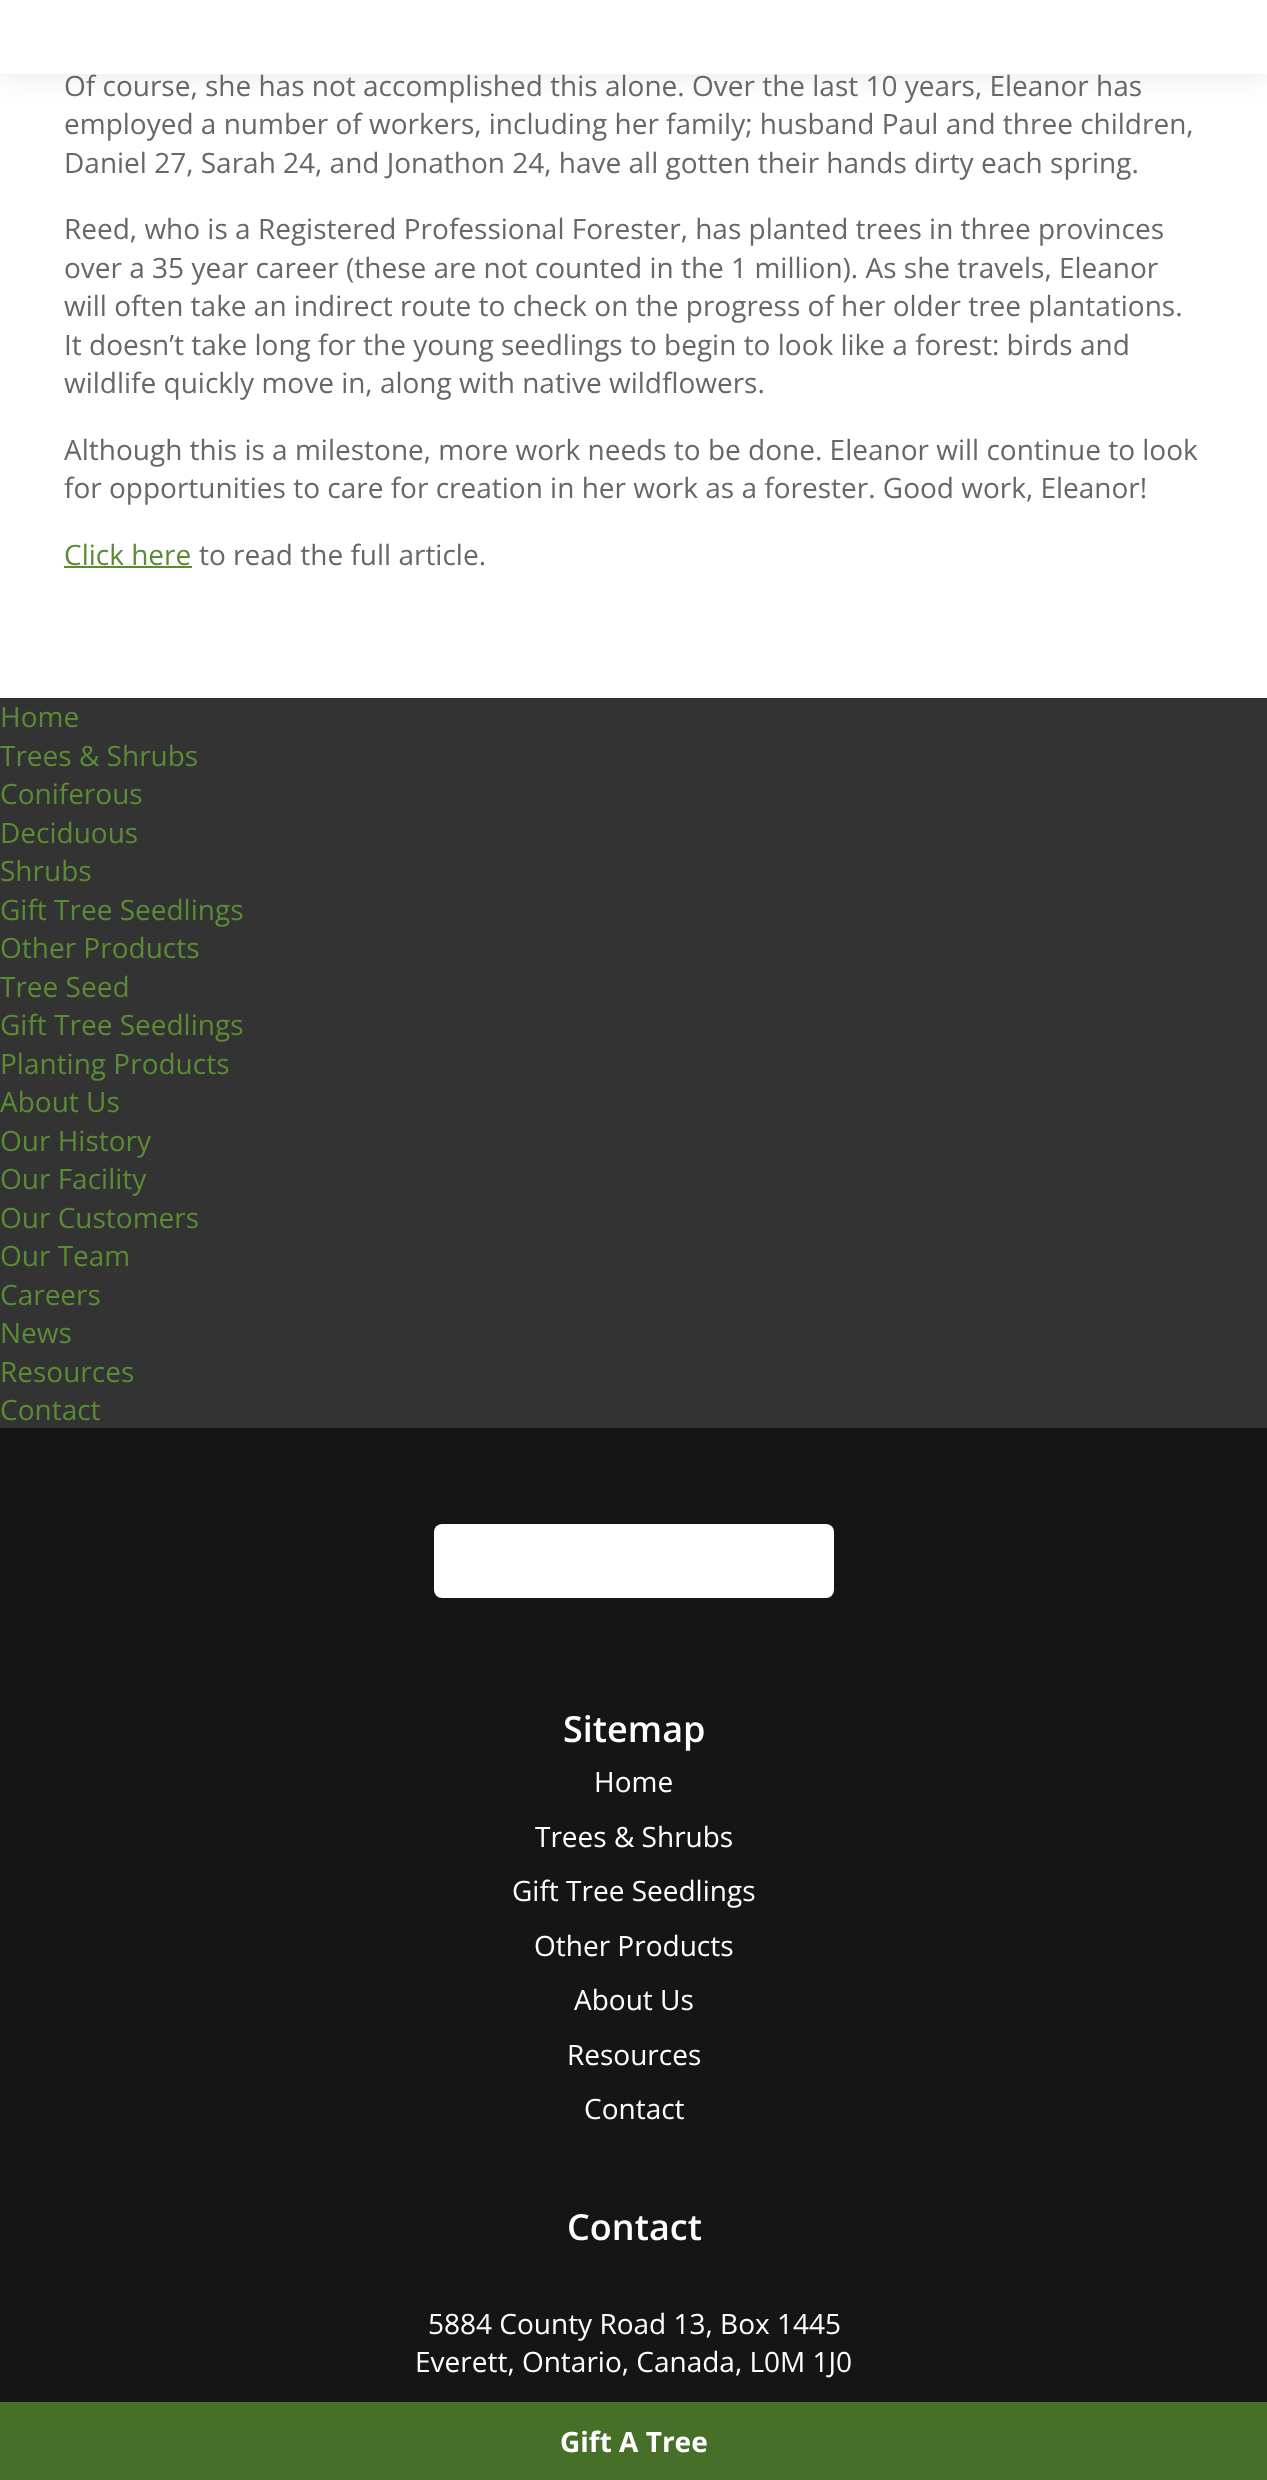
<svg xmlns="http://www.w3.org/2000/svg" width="1267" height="2480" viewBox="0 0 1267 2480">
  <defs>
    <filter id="blur1" x="-50%" y="-200%" width="200%" height="500%"><feGaussianBlur stdDeviation="15"/></filter>
  </defs>
  <rect width="100%" height="100%" fill="#343333"/>
  <rect x="0" y="74" width="1267" height="624" fill="#ffffff"/>
  <rect x="0" y="0" width="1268" height="74" fill="#000000" fill-opacity="0.1" filter="url(#blur1)"/>
  <rect x="0" y="0" width="1267" height="74" fill="#ffffff"/>
  <text x="64" y="96" font-family="Open Sans" font-size="28" fill="#676767">Of course, she has not accomplished this alone. Over the last 10 years, Eleanor has</text>
  <text x="64" y="134" font-family="Open Sans" font-size="28" fill="#676767">employed a number of workers, including her family; husband Paul and three children,</text>
  <text x="64" y="173" font-family="Open Sans" font-size="28" fill="#676767">Daniel 27, Sarah 24, and Jonathon 24, have all gotten their hands dirty each spring.</text>
  <text x="64" y="239" font-family="Open Sans" font-size="28" fill="#676767">Reed, who is a Registered Professional Forester, has planted trees in three provinces</text>
  <text x="64" y="278" font-family="Open Sans" font-size="28" fill="#676767">over a 35 year career (these are not counted in the 1 million). As she travels, Eleanor</text>
  <text x="64" y="316" font-family="Open Sans" font-size="28" fill="#676767">will often take an indirect route to check on the progress of her older tree plantations.</text>
  <text x="64" y="355" font-family="Open Sans" font-size="28" fill="#676767">It doesn’t take long for the young seedlings to begin to look like a forest: birds and</text>
  <text x="64" y="393" font-family="Open Sans" font-size="28" fill="#676767">wildlife quickly move in, along with native wildflowers.</text>
  <text x="64" y="460" font-family="Open Sans" font-size="28" fill="#676767">Although this is a milestone, more work needs to be done. Eleanor will continue to look</text>
  <text x="64" y="498" font-family="Open Sans" font-size="28" fill="#676767">for opportunities to care for creation in her work as a forester. Good work, Eleanor!</text>
  <text x="64" y="565" font-family="Open Sans" font-size="28" fill="#5a8c35">Click here</text>
  <rect x="64" y="566" width="128" height="2" fill="#5a8c35"/>
  <text x="199" y="565" font-family="Open Sans" font-size="28" fill="#676767">to read the full article.</text>
  <text x="0" y="727" font-family="Open Sans" font-size="28" fill="#5a8c35">Home</text>
  <text x="0" y="766" font-family="Open Sans" font-size="28" fill="#5a8c35">Trees &amp; Shrubs</text>
  <text x="0" y="804" font-family="Open Sans" font-size="28" fill="#5a8c35">Coniferous</text>
  <text x="0" y="843" font-family="Open Sans" font-size="28" fill="#5a8c35">Deciduous</text>
  <text x="0" y="881" font-family="Open Sans" font-size="28" fill="#5a8c35">Shrubs</text>
  <text x="0" y="920" font-family="Open Sans" font-size="28" fill="#5a8c35">Gift Tree Seedlings</text>
  <text x="0" y="958" font-family="Open Sans" font-size="28" fill="#5a8c35">Other Products</text>
  <text x="0" y="997" font-family="Open Sans" font-size="28" fill="#5a8c35">Tree Seed</text>
  <text x="0" y="1035" font-family="Open Sans" font-size="28" fill="#5a8c35">Gift Tree Seedlings</text>
  <text x="0" y="1074" font-family="Open Sans" font-size="28" fill="#5a8c35">Planting Products</text>
  <text x="0" y="1112" font-family="Open Sans" font-size="28" fill="#5a8c35">About Us</text>
  <text x="0" y="1151" font-family="Open Sans" font-size="28" fill="#5a8c35">Our History</text>
  <text x="0" y="1189" font-family="Open Sans" font-size="28" fill="#5a8c35">Our Facility</text>
  <text x="0" y="1228" font-family="Open Sans" font-size="28" fill="#5a8c35">Our Customers</text>
  <text x="0" y="1266" font-family="Open Sans" font-size="28" fill="#5a8c35">Our Team</text>
  <text x="0" y="1305" font-family="Open Sans" font-size="28" fill="#5a8c35">Careers</text>
  <text x="0" y="1343" font-family="Open Sans" font-size="28" fill="#5a8c35">News</text>
  <text x="0" y="1382" font-family="Open Sans" font-size="28" fill="#5a8c35">Resources</text>
  <text x="0" y="1420" font-family="Open Sans" font-size="28" fill="#5a8c35">Contact</text>
  <rect x="0" y="1428" width="1267" height="974" fill="#141514"/>
  <rect x="434" y="1524" width="400" height="74" rx="8" fill="#ffffff"/>
  <text x="563" y="1742" font-family="Open Sans" font-size="36" font-weight="600" fill="#ffffff">Sitemap</text>
  <text x="594" y="1792" font-family="Open Sans" font-size="28" fill="#ffffff">Home</text>
  <text x="535" y="1847" font-family="Open Sans" font-size="28" fill="#ffffff">Trees &amp; Shrubs</text>
  <text x="512" y="1901" font-family="Open Sans" font-size="28" fill="#ffffff">Gift Tree Seedlings</text>
  <text x="534" y="1956" font-family="Open Sans" font-size="28" fill="#ffffff">Other Products</text>
  <text x="574" y="2010" font-family="Open Sans" font-size="28" fill="#ffffff">About Us</text>
  <text x="567" y="2065" font-family="Open Sans" font-size="28" fill="#ffffff">Resources</text>
  <text x="584" y="2119" font-family="Open Sans" font-size="28" fill="#ffffff">Contact</text>
  <text x="567" y="2240" font-family="Open Sans" font-size="36" font-weight="600" fill="#ffffff">Contact</text>
  <text x="428" y="2334" font-family="Open Sans" font-size="28" fill="#ffffff">5884 County Road 13, Box 1445</text>
  <text x="415" y="2372" font-family="Open Sans" font-size="28" fill="#ffffff">Everett, Ontario, Canada, L0M 1J0</text>
  <rect x="0" y="2402" width="1267" height="78" fill="#466f28"/>
  <text x="560" y="2452" font-family="Open Sans" font-size="28" font-weight="bold" fill="#ffffff">Gift A Tree</text>
</svg>
